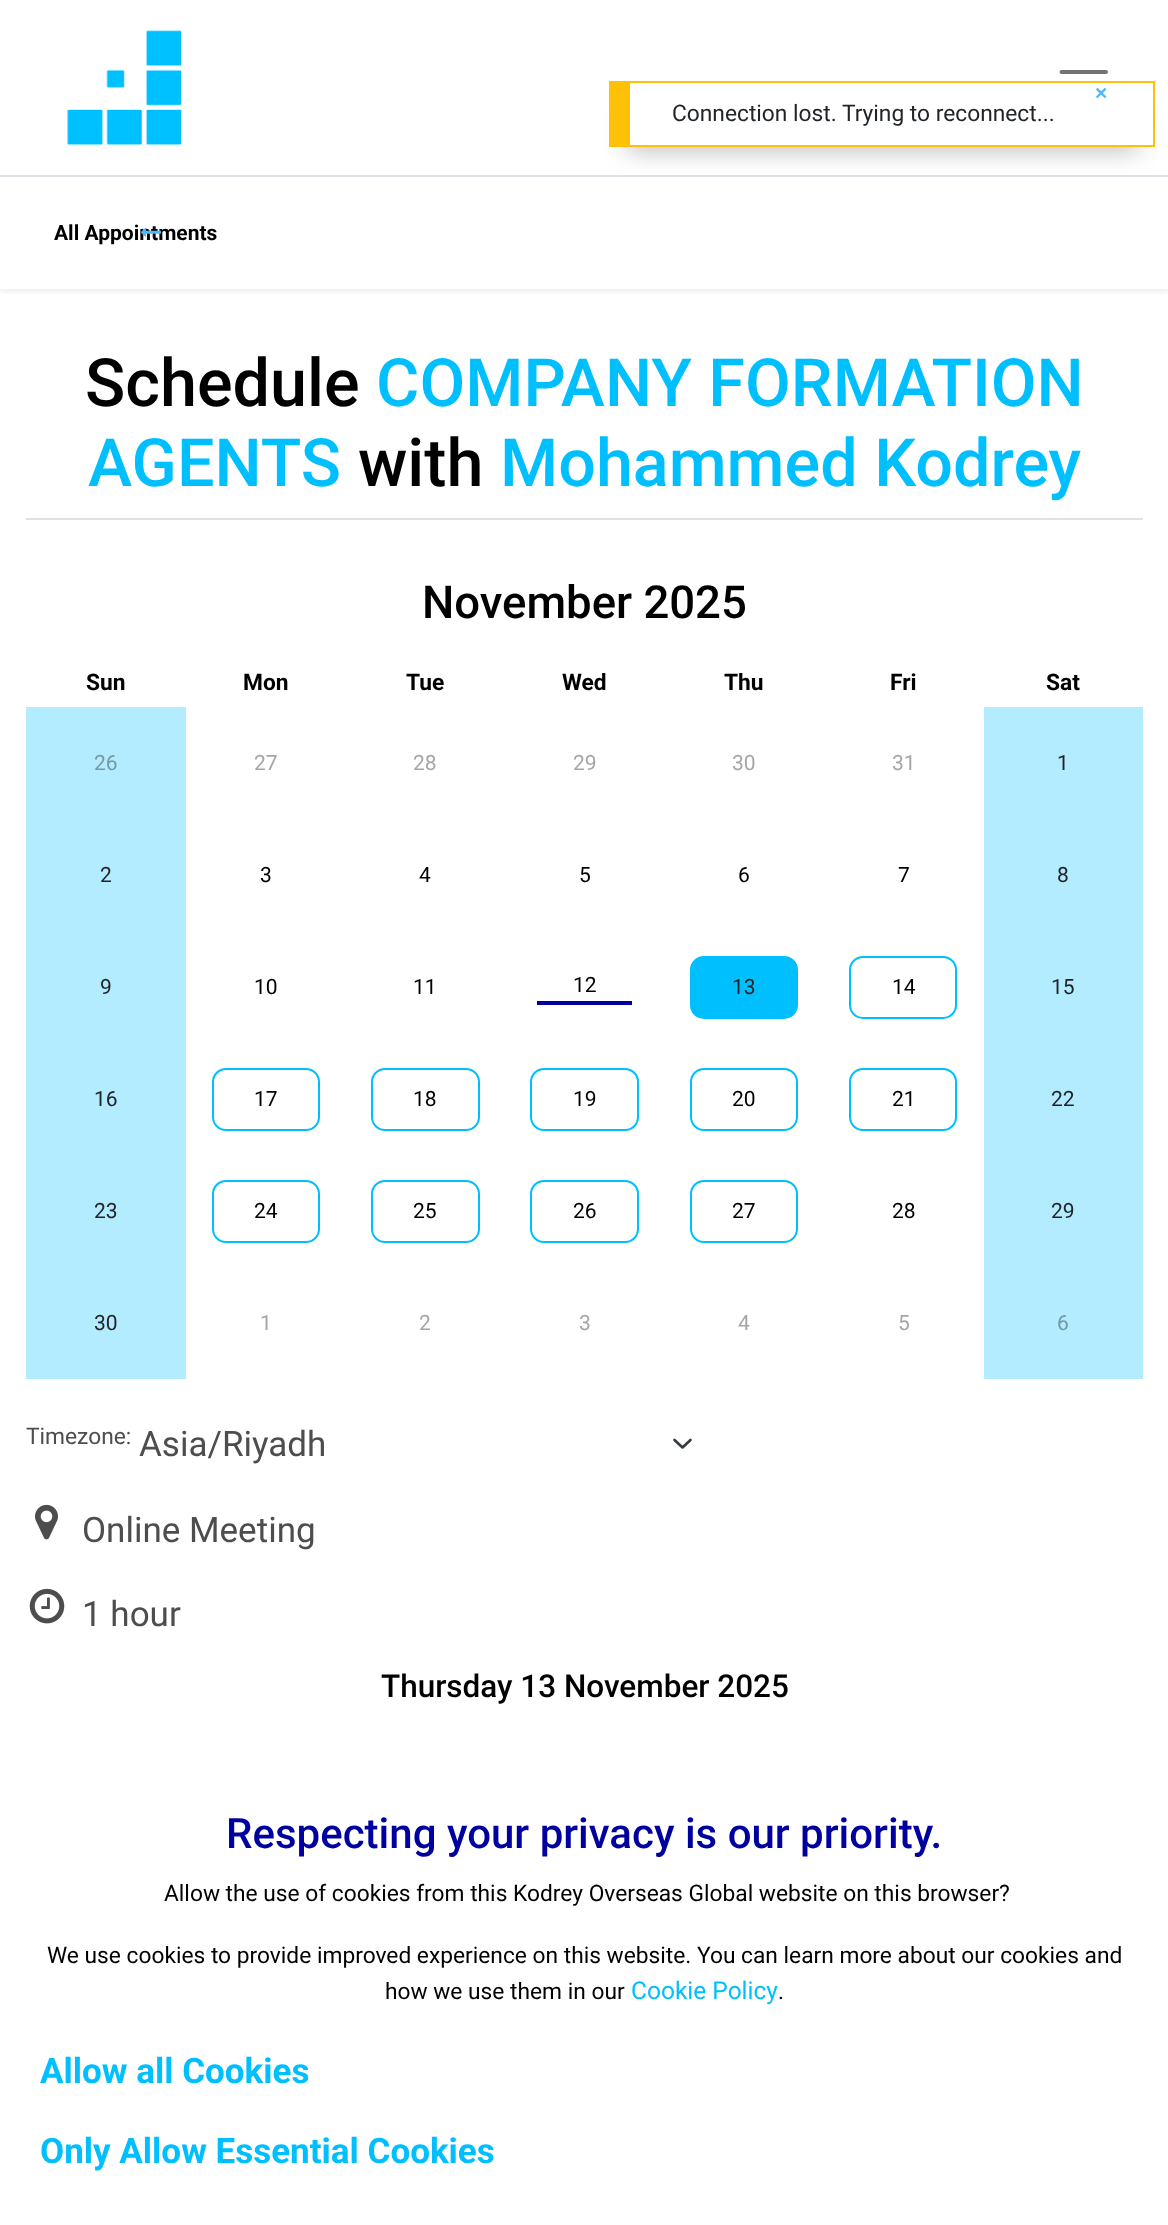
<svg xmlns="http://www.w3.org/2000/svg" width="1168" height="2225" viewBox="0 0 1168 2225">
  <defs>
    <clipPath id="clip1"><rect x="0" y="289" width="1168" height="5"/></clipPath>
    <filter id="blur1" x="-50%" y="-200%" width="200%" height="500%"><feGaussianBlur stdDeviation="3.5"/></filter>
    <filter id="blur2" x="-50%" y="-200%" width="200%" height="500%"><feGaussianBlur stdDeviation="12"/></filter>
  </defs>
  <rect width="100%" height="100%" fill="#ffffff"/>
  <path d="M1061.5 72H1106M1061.5 88H1106M1061.5 104H1106" fill="none" stroke="#737373" stroke-width="4" stroke-linecap="round"/>
  <g clip-path="url(#clip1)">
    <rect x="0" y="179" width="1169" height="113" fill="#000000" fill-opacity="0.07" filter="url(#blur1)"/>
  </g>
  <rect x="0" y="175" width="1168" height="2" fill="#dee2e6"/>
  <rect x="627" y="119" width="511" height="32" fill="#000000" fill-opacity="0.25" filter="url(#blur2)"/>
  <rect x="630" y="86" width="523" height="59" fill="#ffffff"/>
  <rect x="630" y="81" width="525" height="2" fill="#ffc107"/>
  <rect x="1153" y="81" width="2" height="66" fill="#ffc107"/>
  <rect x="630" y="145" width="525" height="2" fill="#ffc107"/>
  <rect x="609" y="81" width="21" height="66" fill="#ffc107"/>
  <text x="1095" y="100" font-family="Liberation Sans" font-size="21" font-weight="bold" fill="#4db7fe">×</text>
  <text x="672" y="121" font-family="Roboto" font-size="22.75" fill="#212529">Connection lost. Trying to reconnect...</text>
  <image x="67" y="30" width="115" height="116" href="img1.png"/>
  <text x="54" y="240" font-family="Roboto" font-size="21" font-weight="bold" fill="#000000">All Appointments</text>
  <image x="140" y="227" width="21" height="10" href="img2.png"/>
  <rect x="26" y="518" width="1117" height="2" fill="#dee2e6"/>
  <text x="85" y="406" font-family="Roboto" font-size="66.5" font-weight="500" fill="#000000">Schedule</text>
  <text x="376" y="406" font-family="Roboto" font-size="66.5" font-weight="500" fill="#00bfff">COMPANY FORMATION</text>
  <text x="88" y="486" font-family="Roboto" font-size="66.5" font-weight="500" fill="#00bfff">AGENTS</text>
  <text x="358" y="486" font-family="Roboto" font-size="66.5" font-weight="500" fill="#000000">with</text>
  <text x="500" y="486" font-family="Roboto" font-size="66.5" font-weight="500" fill="#00bfff">Mohammed Kodrey</text>
  <text x="422" y="618" font-family="Roboto" font-size="45.5" font-weight="500" fill="#000000">November 2025</text>
  <text x="86" y="690" font-family="Roboto" font-size="22.75" font-weight="bold" fill="#000000">Sun</text>
  <text x="243" y="690" font-family="Roboto" font-size="22.75" font-weight="bold" fill="#000000">Mon</text>
  <text x="406" y="690" font-family="Roboto" font-size="22.75" font-weight="bold" fill="#000000">Tue</text>
  <text x="562" y="690" font-family="Roboto" font-size="22.75" font-weight="bold" fill="#000000">Wed</text>
  <text x="724" y="690" font-family="Roboto" font-size="22.75" font-weight="bold" fill="#000000">Thu</text>
  <text x="890" y="690" font-family="Roboto" font-size="22.75" font-weight="bold" fill="#000000">Fri</text>
  <text x="1046" y="690" font-family="Roboto" font-size="22.75" font-weight="bold" fill="#000000">Sat</text>
  <rect x="26" y="707" width="160" height="672" fill="#b3ecff"/>
  <text x="94" y="770" font-family="Roboto" font-size="21" fill="#7599a6">26</text>
  <text x="254" y="770" font-family="Roboto" font-size="21" fill="#a6a6a6">27</text>
  <text x="413" y="770" font-family="Roboto" font-size="21" fill="#a6a6a6">28</text>
  <text x="573" y="770" font-family="Roboto" font-size="21" fill="#a6a6a6">29</text>
  <text x="732" y="770" font-family="Roboto" font-size="21" fill="#a6a6a6">30</text>
  <text x="892" y="770" font-family="Roboto" font-size="21" fill="#a6a6a6">31</text>
  <rect x="984" y="707" width="159" height="672" fill="#b3ecff"/>
  <text x="1057" y="770" font-family="Roboto" font-size="21" fill="#212529">1</text>
  <text x="100" y="882" font-family="Roboto" font-size="21" fill="#212529">2</text>
  <text x="260" y="882" font-family="Roboto" font-size="21" fill="#000000">3</text>
  <text x="419" y="882" font-family="Roboto" font-size="21" fill="#000000">4</text>
  <text x="579" y="882" font-family="Roboto" font-size="21" fill="#000000">5</text>
  <text x="738" y="882" font-family="Roboto" font-size="21" fill="#000000">6</text>
  <text x="898" y="882" font-family="Roboto" font-size="21" fill="#000000">7</text>
  <text x="1057" y="882" font-family="Roboto" font-size="21" fill="#212529">8</text>
  <text x="100" y="994" font-family="Roboto" font-size="21" fill="#212529">9</text>
  <text x="254" y="994" font-family="Roboto" font-size="21" fill="#000000">10</text>
  <text x="413" y="994" font-family="Roboto" font-size="21" fill="#000000">11</text>
  <text x="573" y="992" font-family="Roboto" font-size="21" fill="#000000">12</text>
  <rect x="537" y="1001" width="95" height="4" fill="#0000a0"/>
  <rect x="691" y="957" width="106" height="61" rx="13" fill="#00bfff" stroke="#00bfff" stroke-width="2"/>
  <text x="732" y="994" font-family="Roboto" font-size="21" fill="#212529">13</text>
  <rect x="850" y="957" width="106" height="61" rx="13" fill="none" stroke="#00bfff" stroke-width="2"/>
  <text x="892" y="994" font-family="Roboto" font-size="21" fill="#000000">14</text>
  <text x="1051" y="994" font-family="Roboto" font-size="21" fill="#212529">15</text>
  <text x="94" y="1106" font-family="Roboto" font-size="21" fill="#212529">16</text>
  <rect x="213" y="1069" width="106" height="61" rx="13" fill="none" stroke="#00bfff" stroke-width="2"/>
  <text x="254" y="1106" font-family="Roboto" font-size="21" fill="#000000">17</text>
  <rect x="372" y="1069" width="107" height="61" rx="13" fill="none" stroke="#00bfff" stroke-width="2"/>
  <text x="413" y="1106" font-family="Roboto" font-size="21" fill="#000000">18</text>
  <rect x="531" y="1069" width="107" height="61" rx="13" fill="none" stroke="#00bfff" stroke-width="2"/>
  <text x="573" y="1106" font-family="Roboto" font-size="21" fill="#000000">19</text>
  <rect x="691" y="1069" width="106" height="61" rx="13" fill="none" stroke="#00bfff" stroke-width="2"/>
  <text x="732" y="1106" font-family="Roboto" font-size="21" fill="#000000">20</text>
  <rect x="850" y="1069" width="106" height="61" rx="13" fill="none" stroke="#00bfff" stroke-width="2"/>
  <text x="892" y="1106" font-family="Roboto" font-size="21" fill="#000000">21</text>
  <text x="1051" y="1106" font-family="Roboto" font-size="21" fill="#212529">22</text>
  <text x="94" y="1218" font-family="Roboto" font-size="21" fill="#212529">23</text>
  <rect x="213" y="1181" width="106" height="61" rx="13" fill="none" stroke="#00bfff" stroke-width="2"/>
  <text x="254" y="1218" font-family="Roboto" font-size="21" fill="#000000">24</text>
  <rect x="372" y="1181" width="107" height="61" rx="13" fill="none" stroke="#00bfff" stroke-width="2"/>
  <text x="413" y="1218" font-family="Roboto" font-size="21" fill="#000000">25</text>
  <rect x="531" y="1181" width="107" height="61" rx="13" fill="none" stroke="#00bfff" stroke-width="2"/>
  <text x="573" y="1218" font-family="Roboto" font-size="21" fill="#000000">26</text>
  <rect x="691" y="1181" width="106" height="61" rx="13" fill="none" stroke="#00bfff" stroke-width="2"/>
  <text x="732" y="1218" font-family="Roboto" font-size="21" fill="#000000">27</text>
  <text x="892" y="1218" font-family="Roboto" font-size="21" fill="#000000">28</text>
  <text x="1051" y="1218" font-family="Roboto" font-size="21" fill="#212529">29</text>
  <text x="94" y="1330" font-family="Roboto" font-size="21" fill="#212529">30</text>
  <text x="260" y="1330" font-family="Roboto" font-size="21" fill="#a6a6a6">1</text>
  <text x="419" y="1330" font-family="Roboto" font-size="21" fill="#a6a6a6">2</text>
  <text x="579" y="1330" font-family="Roboto" font-size="21" fill="#a6a6a6">3</text>
  <text x="738" y="1330" font-family="Roboto" font-size="21" fill="#a6a6a6">4</text>
  <text x="898" y="1330" font-family="Roboto" font-size="21" fill="#a6a6a6">5</text>
  <text x="1057" y="1330" font-family="Roboto" font-size="21" fill="#7599a6">6</text>
  <text x="26" y="1444" font-family="Roboto" font-size="22.75" fill="#4d4d4d">Timezone:</text>
  <path d="M674.5 1440L682.5 1447.5L690.5 1440" fill="none" stroke="#343a40" stroke-width="2.6" stroke-linecap="round" stroke-linejoin="round"/>
  <text x="139" y="1456" font-family="Roboto" font-size="35" fill="#4d4d4d">Asia/Riyadh</text>
  <image x="35" y="1504" width="23" height="36" href="img3.png"/>
  <text x="82" y="1542" font-family="Roboto" font-size="35" fill="#4d4d4d">Online Meeting</text>
  <image x="29" y="1588" width="36" height="36" href="img4.png"/>
  <text x="82" y="1626" font-family="Roboto" font-size="35" fill="#4d4d4d">1 hour</text>
  <text x="381" y="1697" font-family="Roboto" font-size="31.5" font-weight="500" fill="#000000">Thursday 13 November 2025</text>
  <text x="226" y="1848" font-family="Roboto" font-size="42" font-weight="500" fill="#0000a0">Respecting your privacy is our priority.</text>
  <text x="164" y="1901" font-family="Roboto" font-size="22.75" fill="#000000">Allow the use of cookies from this Kodrey Overseas Global website on this browser?</text>
  <text x="47" y="1963" font-family="Roboto" font-size="22.75" fill="#000000">We use cookies to provide improved experience on this website. You can learn more about our cookies and</text>
  <text x="385" y="1999" font-family="Roboto" font-size="22.75" fill="#000000">how we use them in our </text>
  <text x="631" y="1999" font-family="Roboto" font-size="24.5" fill="#00bfff">Cookie Policy</text>
  <text x="778" y="1999" font-family="Roboto" font-size="22.75" fill="#000000">.</text>
  <text x="40" y="2083" font-family="Roboto" font-size="35" font-weight="bold" fill="#00bfff">Allow all Cookies</text>
  <text x="40" y="2163" font-family="Roboto" font-size="35" font-weight="bold" fill="#00bfff">Only Allow Essential Cookies</text>
</svg>
